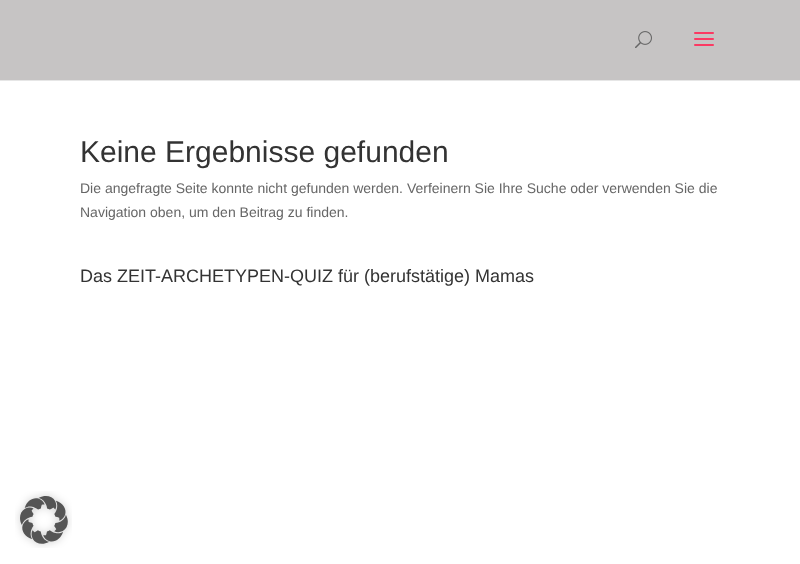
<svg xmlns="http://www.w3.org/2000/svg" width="800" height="564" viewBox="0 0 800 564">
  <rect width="100%" height="100%" fill="#ffffff"/>
  <rect x="0" y="80" width="800" height="1" fill="#e6e6e6"/>
  <rect x="0" y="0" width="800" height="80" fill="#c6c4c4"/>
  <image x="635" y="31" width="17" height="17" href="img1.png"/>
  <image x="694" y="32" width="20" height="14" href="img2.png"/>
  <text x="80" y="162" font-family="Liberation Sans" font-size="30" fill="#333333">Keine Ergebnisse gefunden</text>
  <text x="80" y="193" font-family="Liberation Sans" font-size="14" fill="#666666">Die angefragte Seite konnte nicht gefunden werden. Verfeinern Sie Ihre Suche oder verwenden Sie die</text>
  <text x="80" y="217" font-family="Liberation Sans" font-size="14" fill="#666666">Navigation oben, um den Beitrag zu finden.</text>
  <text x="80" y="282" font-family="Liberation Sans" font-size="18" fill="#333333">Das ZEIT-ARCHETYPEN-QUIZ für (berufstätige) Mamas</text>
  <image x="15" y="491" width="57" height="57" href="img3.png"/>
</svg>
